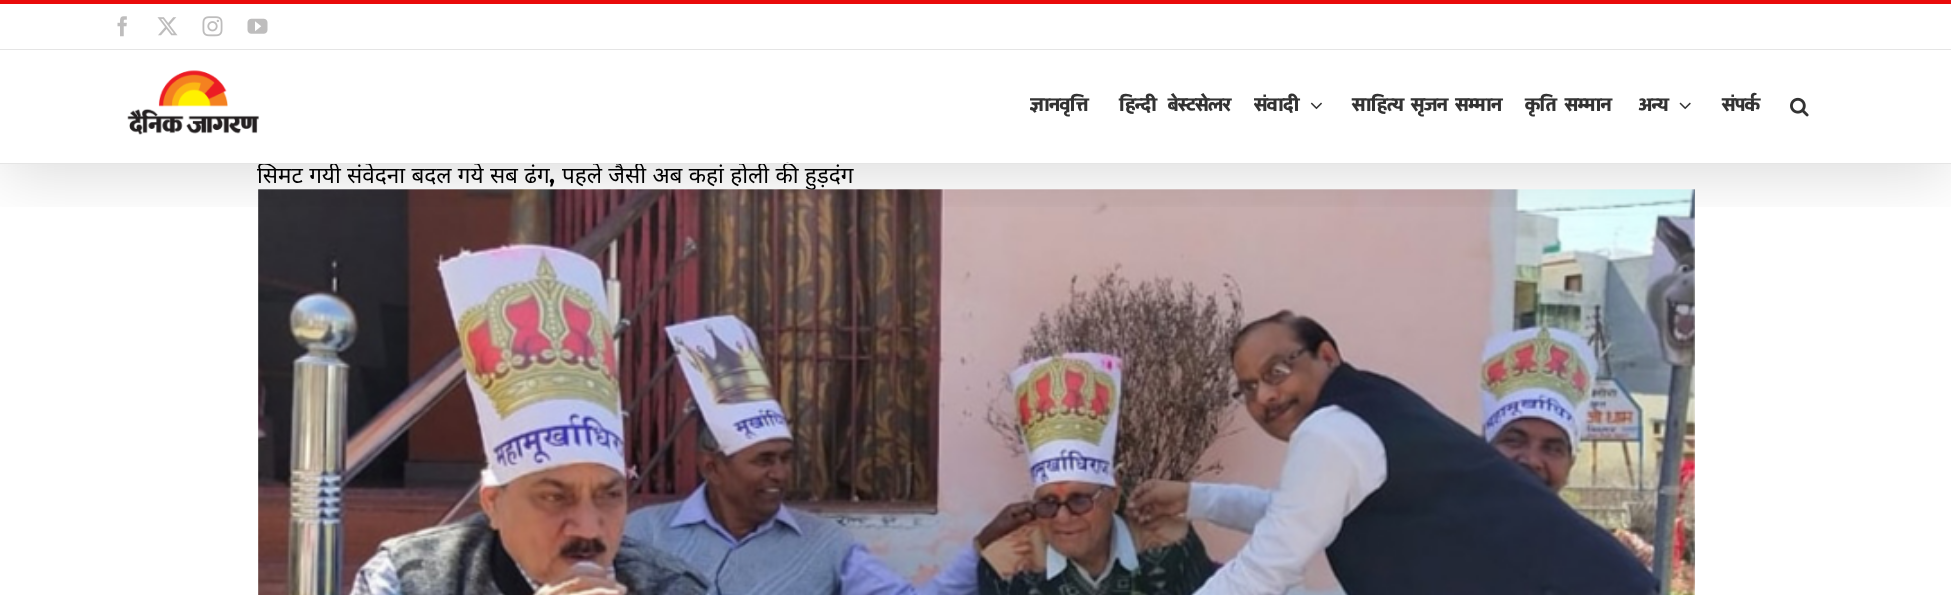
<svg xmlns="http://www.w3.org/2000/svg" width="1951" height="595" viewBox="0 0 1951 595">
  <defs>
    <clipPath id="clip1"><rect x="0" y="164" width="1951" height="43"/></clipPath>
    <filter id="blur1" x="-50%" y="-200%" width="200%" height="500%"><feGaussianBlur stdDeviation="31"/></filter>
    <clipPath id="clip2"><rect x="1030" y="50" width="809" height="113"/></clipPath>
    <clipPath id="clip3"><rect x="1254" y="50" width="99" height="113"/></clipPath>
  </defs>
  <rect width="100%" height="100%" fill="#ffffff"/>
  <text x="562" y="183" word-spacing="0.5" font-family="Noto Sans" font-size="22.5" fill="#000000">पहले जैसी अब कहां होली की हुड़दंग</text>
  <image x="258" y="189" width="1437" height="406" href="img9.png"/>
  <g clip-path="url(#clip1)">
    <rect x="3" y="15" width="1946" height="159" fill="#000000" fill-opacity="0.14" filter="url(#blur1)"/>
  </g>
  <rect x="0" y="0" width="1951" height="4" fill="#e90a0a"/>
  <rect x="0" y="49" width="1951" height="1" fill="#e5e5e5"/>
  <image x="117" y="16" width="10" height="21" href="img1.png"/>
  <image x="157" y="17" width="21" height="19" href="img2.png"/>
  <image x="202" y="16" width="21" height="21" href="img3.png"/>
  <image x="247" y="18" width="21" height="16" href="img4.png"/>
  <text x="257" y="183" word-spacing="0.5" font-family="Noto Sans" font-size="22.5" fill="#000000">सिमट गयी संवेदना बदल गये सब ढंग</text>
  <rect x="262" y="162" width="510" height="1" fill="#ffffff"/>
  <rect x="0" y="163" width="1951" height="1" fill="#e5e5e5"/>
  <image x="127" y="70" width="133" height="65" href="img5.png"/>
  <g clip-path="url(#clip2)">
    <text x="1030" y="111" font-family="Yantramanav" font-size="20" font-weight="900" letter-spacing="-1.25" fill="#333333">ज्ञानवृत्ति</text>
  </g>
  <text x="1119" y="111" word-spacing="8" font-family="Yantramanav" font-size="20" font-weight="900" letter-spacing="-1.25" fill="#333333">हिन्दी बेस्टसेलर</text>
  <g clip-path="url(#clip3)">
    <text x="1254" y="111" font-family="Yantramanav" font-size="20" font-weight="900" letter-spacing="-1.25" fill="#333333">संवादी</text>
  </g>
  <image x="1310" y="102" width="12" height="8" href="img6.png"/>
  <text x="1352" y="111" word-spacing="4" font-family="Yantramanav" font-size="20" font-weight="900" letter-spacing="-1.25" fill="#333333">साहित्य सृजन सम्मान</text>
  <text x="1525" y="111" word-spacing="5" font-family="Yantramanav" font-size="20" font-weight="900" letter-spacing="-1.25" fill="#333333">कृति सम्मान</text>
  <text x="1638" y="111" font-family="Yantramanav" font-size="20" font-weight="900" letter-spacing="-1.25" fill="#333333">अन्य</text>
  <image x="1679" y="102" width="12" height="8" href="img7.png"/>
  <text x="1722" y="111" font-family="Yantramanav" font-size="20" font-weight="900" letter-spacing="-1.25" fill="#333333">संपर्क</text>
  <image x="1790" y="97" width="19" height="20" href="img8.png"/>
  <text x="549" y="183" font-family="Montserrat" font-size="22.5" font-weight="100" fill="#000000">,</text>
</svg>
